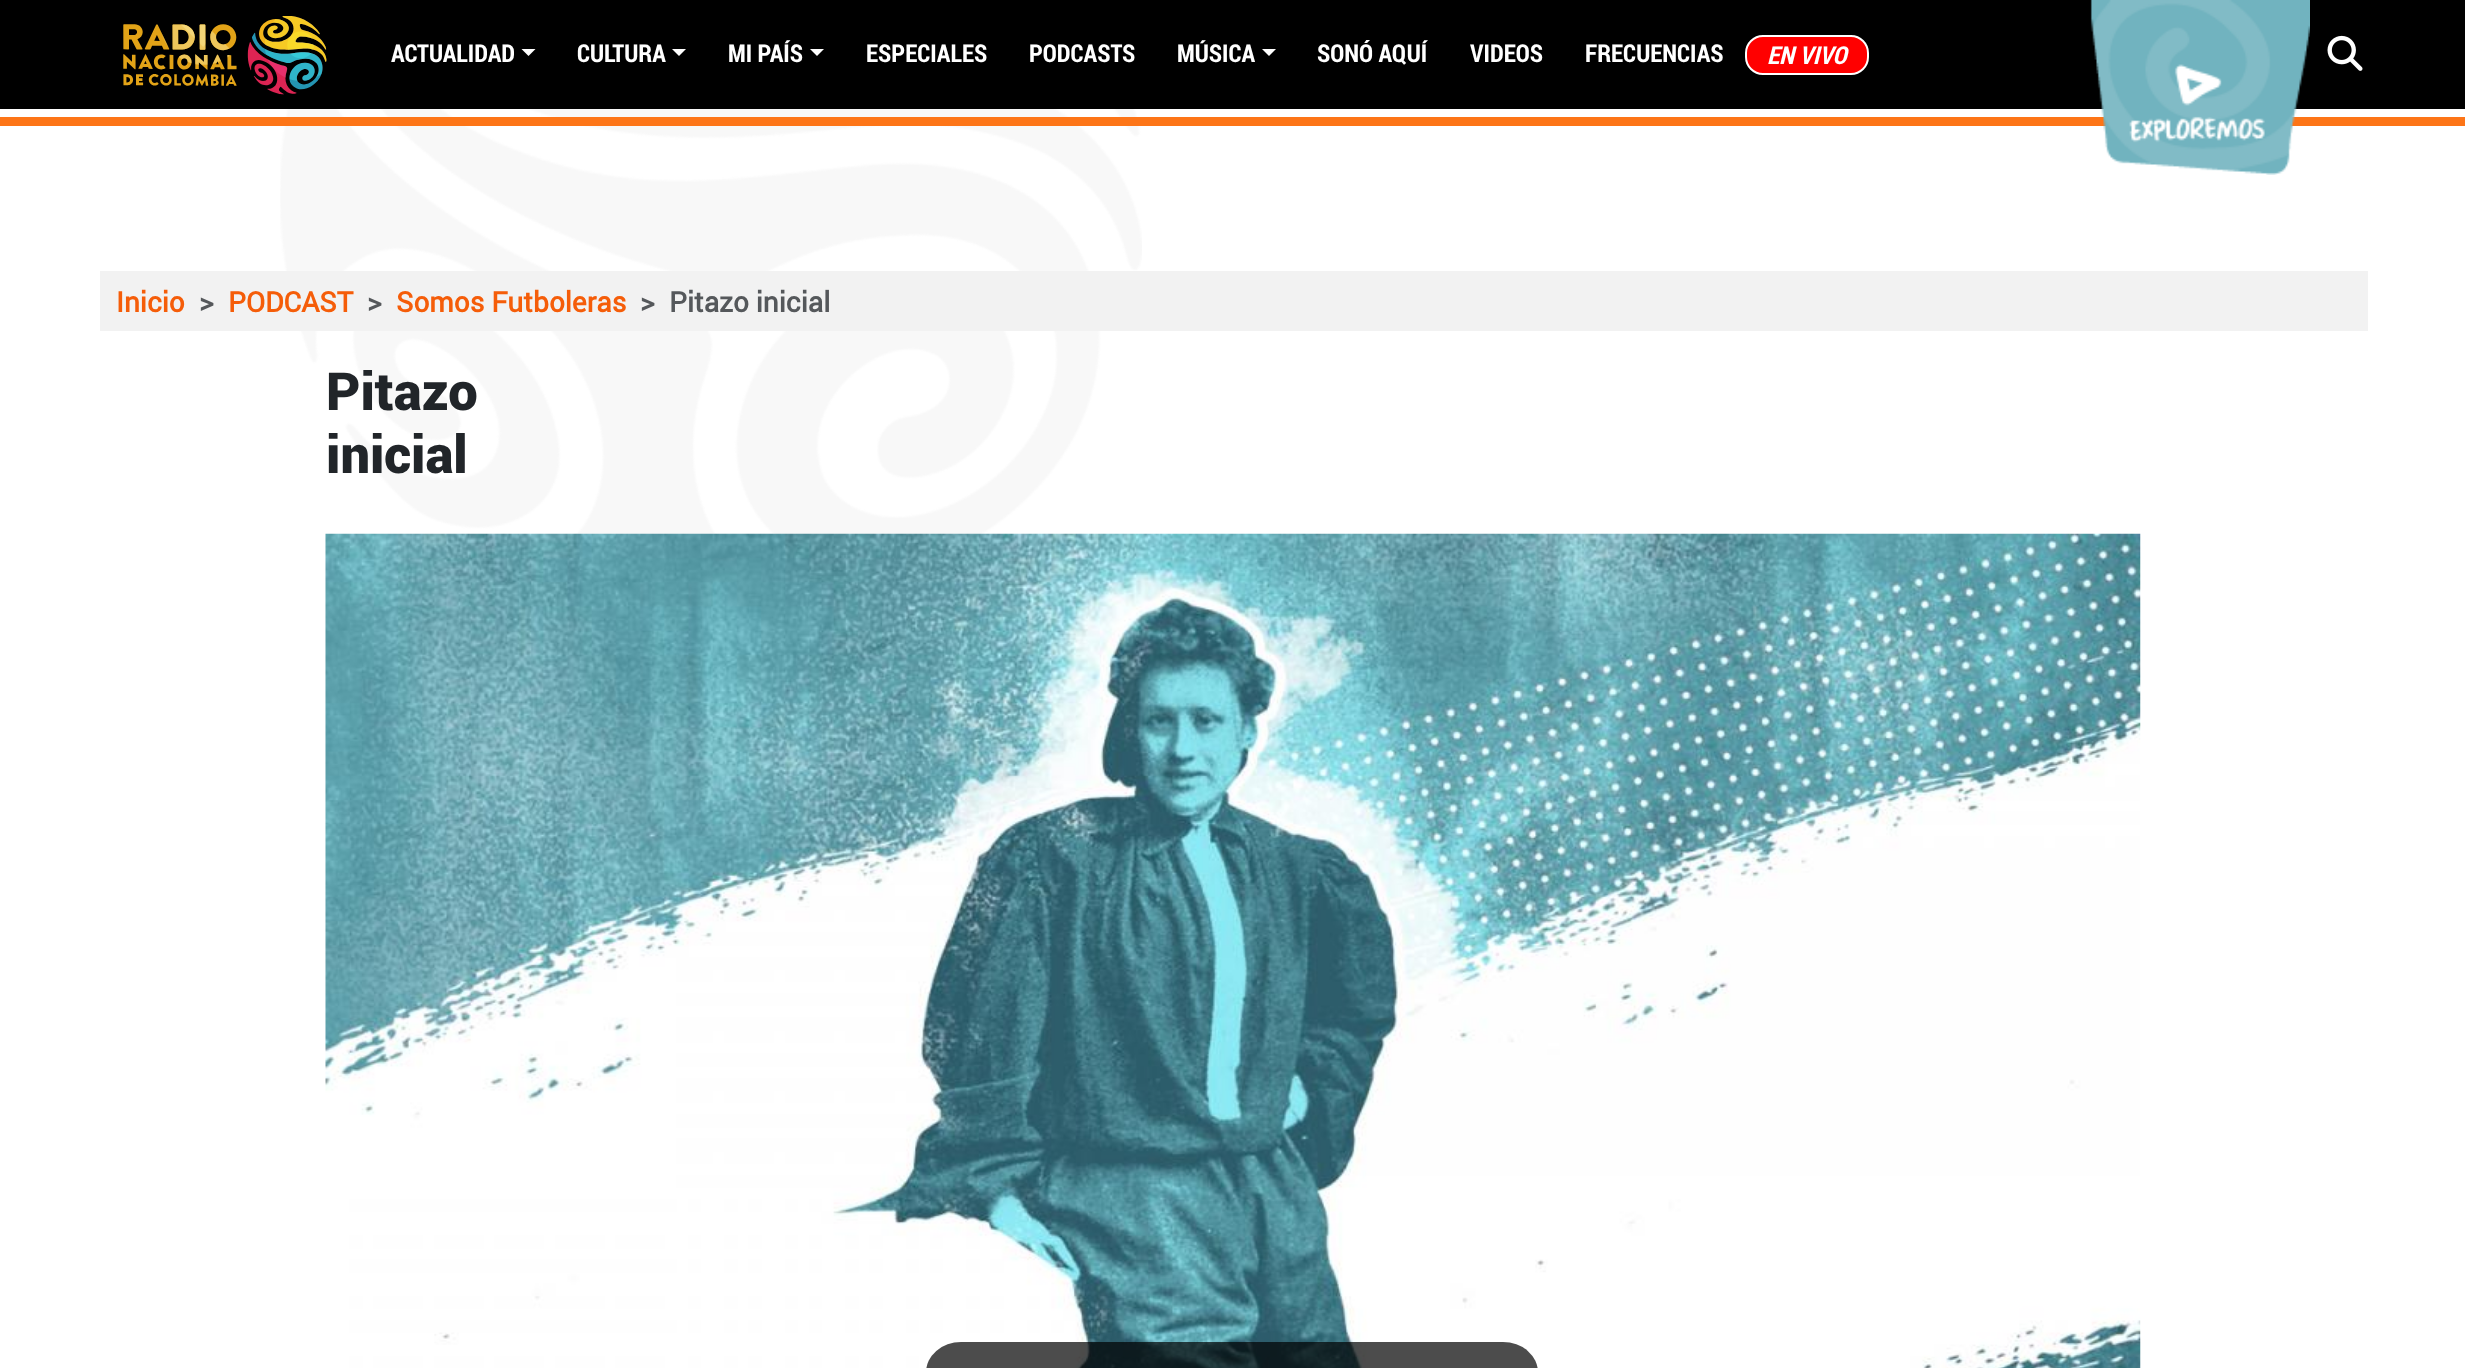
<svg xmlns="http://www.w3.org/2000/svg" width="2465" height="1368" viewBox="0 0 2465 1368">
  <rect width="100%" height="100%" fill="#ffffff"/>
  <image x="280" y="109" width="862" height="425" href="img1.png"/>
  <rect x="0" y="117" width="2465" height="9" fill="#fd7517"/>
  <rect x="0" y="0" width="2465" height="109" fill="#000000"/>
  <image x="123" y="16" width="204" height="79" href="img2.png"/>
  <text x="391" y="62" font-family="Roboto Condensed" font-size="24.5" font-weight="bold" fill="#ffffff">ACTUALIDAD</text>
  <path d="M521.5 49H535.5L528.5 56Z" fill="#ffffff"/>
  <text x="577" y="62" font-family="Roboto Condensed" font-size="24.5" font-weight="bold" fill="#ffffff">CULTURA</text>
  <path d="M672 49H686L679 56Z" fill="#ffffff"/>
  <text x="728" y="62" font-family="Roboto Condensed" font-size="24.5" font-weight="bold" fill="#ffffff">MI PAÍS</text>
  <path d="M810 49H824L817 56Z" fill="#ffffff"/>
  <text x="866" y="62" font-family="Roboto Condensed" font-size="24.5" font-weight="bold" fill="#ffffff">ESPECIALES</text>
  <text x="1029" y="62" font-family="Roboto Condensed" font-size="24.5" font-weight="bold" fill="#ffffff">PODCASTS</text>
  <text x="1177" y="62" font-family="Roboto Condensed" font-size="24.5" font-weight="bold" fill="#ffffff">MÚSICA</text>
  <path d="M1262 49H1276L1269 56Z" fill="#ffffff"/>
  <text x="1317" y="62" font-family="Roboto Condensed" font-size="24.5" font-weight="bold" fill="#ffffff">SONÓ AQUÍ</text>
  <text x="1470" y="62" font-family="Roboto Condensed" font-size="24.5" font-weight="bold" fill="#ffffff">VIDEOS</text>
  <text x="1585" y="62" font-family="Roboto Condensed" font-size="24.5" font-weight="bold" fill="#ffffff">FRECUENCIAS</text>
  <rect x="1746" y="36" width="122" height="38" rx="17" fill="#ff0000" stroke="#ffffff" stroke-width="2"/>
  <text x="1767" y="64" font-family="Roboto Condensed" font-size="24.5" font-weight="bold" font-style="italic" fill="#ffffff">EN VIVO</text>
  <image x="2090" y="0" width="220" height="175" href="img3.png"/>
  <image x="2327" y="35" width="36" height="36" href="img4.png"/>
  <rect x="100" y="271" width="2268" height="60" fill="#f2f2f2"/>
  <text x="116" y="312" font-family="Roboto" font-size="28" font-weight="bold" fill="#f55d09">Inicio</text>
  <text x="199" y="312" font-family="Roboto" font-size="28" font-weight="bold" fill="#55585b">&gt;</text>
  <text x="228" y="312" font-family="Roboto" font-size="28" font-weight="bold" fill="#f55d09">PODCAST</text>
  <text x="367" y="312" font-family="Roboto" font-size="28" font-weight="bold" fill="#55585b">&gt;</text>
  <text x="396" y="312" font-family="Roboto" font-size="28" font-weight="bold" fill="#f55d09">Somos Futboleras</text>
  <text x="640" y="312" font-family="Roboto" font-size="28" font-weight="bold" fill="#55585b">&gt;</text>
  <text x="669" y="312" font-family="Roboto" font-size="28" font-weight="bold" fill="#55585b">Pitazo inicial</text>
  <text x="326" y="410" font-family="Roboto" font-size="52.5" font-weight="900" fill="#212529">Pitazo</text>
  <text x="326" y="473" font-family="Roboto" font-size="52.5" font-weight="900" fill="#212529">inicial</text>
  <image x="325" y="533" width="1816" height="835" href="img5.png"/>
  <rect x="926" y="1342" width="612" height="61" rx="35" fill="#000000" fill-opacity="0.7"/>
</svg>
